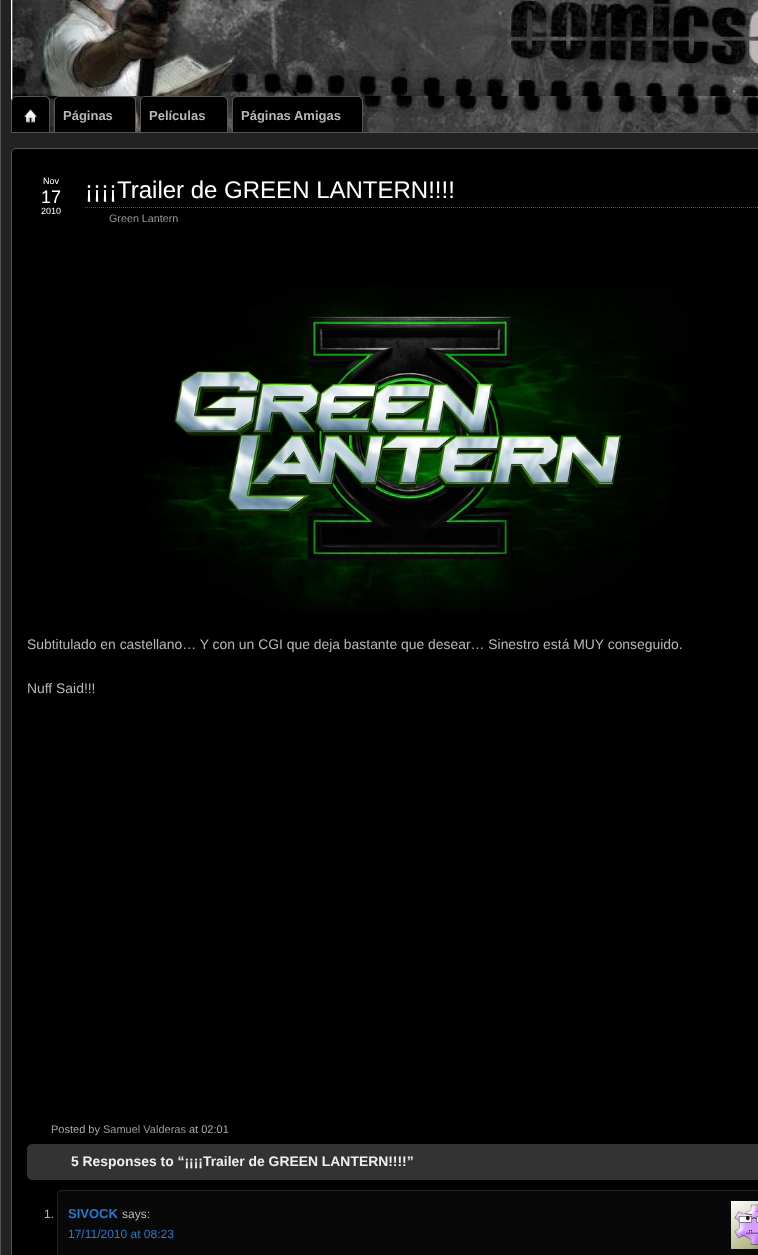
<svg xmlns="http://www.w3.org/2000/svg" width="758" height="1255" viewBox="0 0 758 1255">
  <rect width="100%" height="100%" fill="#222222"/>
  <rect x="0.5" y="-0.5" width="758" height="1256" fill="none" stroke="#555555"/>
  <image x="11" y="0" width="747" height="132" href="img1.png"/>
  <rect x="50" y="132" width="708" height="1" fill="#555555"/>
  <path d="M16 96.5H45C47.5 96.5 49.5 98.5 49.5 101V132.5H11.5V101C11.5 98.5 13.5 96.5 16 96.5Z" fill="none" stroke="#555555"/>
  <path d="M17 97H44C47 97 49 99 49 102V132H12V102C12 99 14 97 17 97Z" fill="#000000"/>
  <image x="24" y="109" width="13" height="14" href="img2.png"/>
  <path d="M59 96.5H131C133.5 96.5 135.5 98.5 135.5 101V132.5H54.5V101C54.5 98.5 56.5 96.5 59 96.5Z" fill="none" stroke="#555555"/>
  <path d="M60 97H130C133 97 135 99 135 102V132H55V102C55 99 57 97 60 97Z" fill="#000000"/>
  <text x="63" y="120" font-family="Liberation Sans" font-size="13" font-weight="bold" fill="#b8b8b8">Páginas</text>
  <path d="M145 96.5H223C225.5 96.5 227.5 98.5 227.5 101V132.5H140.5V101C140.5 98.5 142.5 96.5 145 96.5Z" fill="none" stroke="#555555"/>
  <path d="M146 97H222C225 97 227 99 227 102V132H141V102C141 99 143 97 146 97Z" fill="#000000"/>
  <text x="149" y="120" font-family="Liberation Sans" font-size="13" font-weight="bold" fill="#b8b8b8">Películas</text>
  <path d="M237 96.5H358C360.5 96.5 362.5 98.5 362.5 101V132.5H232.5V101C232.5 98.5 234.5 96.5 237 96.5Z" fill="none" stroke="#555555"/>
  <path d="M238 97H357C360 97 362 99 362 102V132H233V102C233 99 235 97 238 97Z" fill="#000000"/>
  <text x="241" y="120" font-family="Liberation Sans" font-size="13" font-weight="bold" fill="#b8b8b8">Páginas Amigas</text>
  <rect x="11.5" y="148.5" width="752" height="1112" rx="4.5" fill="#000000" stroke="#555555"/>
  <text x="43" y="184" font-family="Liberation Sans" font-size="9" fill="#ffffff">Nov</text>
  <text x="41" y="203" font-family="Liberation Sans" font-size="18" fill="#ffffff">17</text>
  <text x="41" y="214" font-family="Liberation Sans" font-size="9" fill="#ffffff">2010</text>
  <path d="M85 207.5H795" fill="none" stroke="#555555" stroke-dasharray="1 1"/>
  <text x="85" y="198" font-family="Liberation Sans" font-size="24" fill="#ffffff">¡¡¡¡Trailer de GREEN LANTERN!!!!</text>
  <text x="109" y="222" font-family="Liberation Sans" font-size="10.75" fill="#999999">Green Lantern</text>
  <image x="144" y="286" width="543" height="327" href="img3.png"/>
  <text x="27" y="649" font-family="Liberation Sans" font-size="13.9" fill="#b8b8b8">Subtitulado en castellano… Y con un CGI que deja bastante que desear… Sinestro está MUY conseguido.</text>
  <text x="27" y="693" font-family="Liberation Sans" font-size="13.9" fill="#b8b8b8">Nuff Said!!!</text>
  <text x="51" y="1133" font-family="Liberation Sans" font-size="11" fill="#aaaaaa">Posted by</text>
  <text x="103" y="1133" font-family="Liberation Sans" font-size="11" fill="#999999">Samuel Valderas</text>
  <text x="189" y="1133" font-family="Liberation Sans" font-size="11" fill="#aaaaaa">at 02:01</text>
  <rect x="27" y="1144" width="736" height="36" rx="5" fill="#333333"/>
  <text x="71" y="1166" font-family="Liberation Sans" font-size="13.9" font-weight="bold" fill="#eeeeee">5 Responses to “¡¡¡¡Trailer de GREEN LANTERN!!!!”</text>
  <rect x="57.5" y="1190.5" width="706" height="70" rx="4.5" fill="#080808" stroke="#222222"/>
  <text x="44" y="1218" font-family="Liberation Sans" font-size="12" fill="#b8b8b8">1.</text>
  <text x="68" y="1218" font-family="Liberation Sans" font-size="13" font-weight="bold" fill="#227ad1">SIVOCK</text>
  <text x="122" y="1218" font-family="Liberation Sans" font-size="12" fill="#b8b8b8">says:</text>
  <image x="731" y="1201" width="27" height="48" href="img4.png"/>
  <text x="68" y="1238" font-family="Liberation Sans" font-size="12" fill="#227ad1">17/11/2010 at 08:23</text>
</svg>
